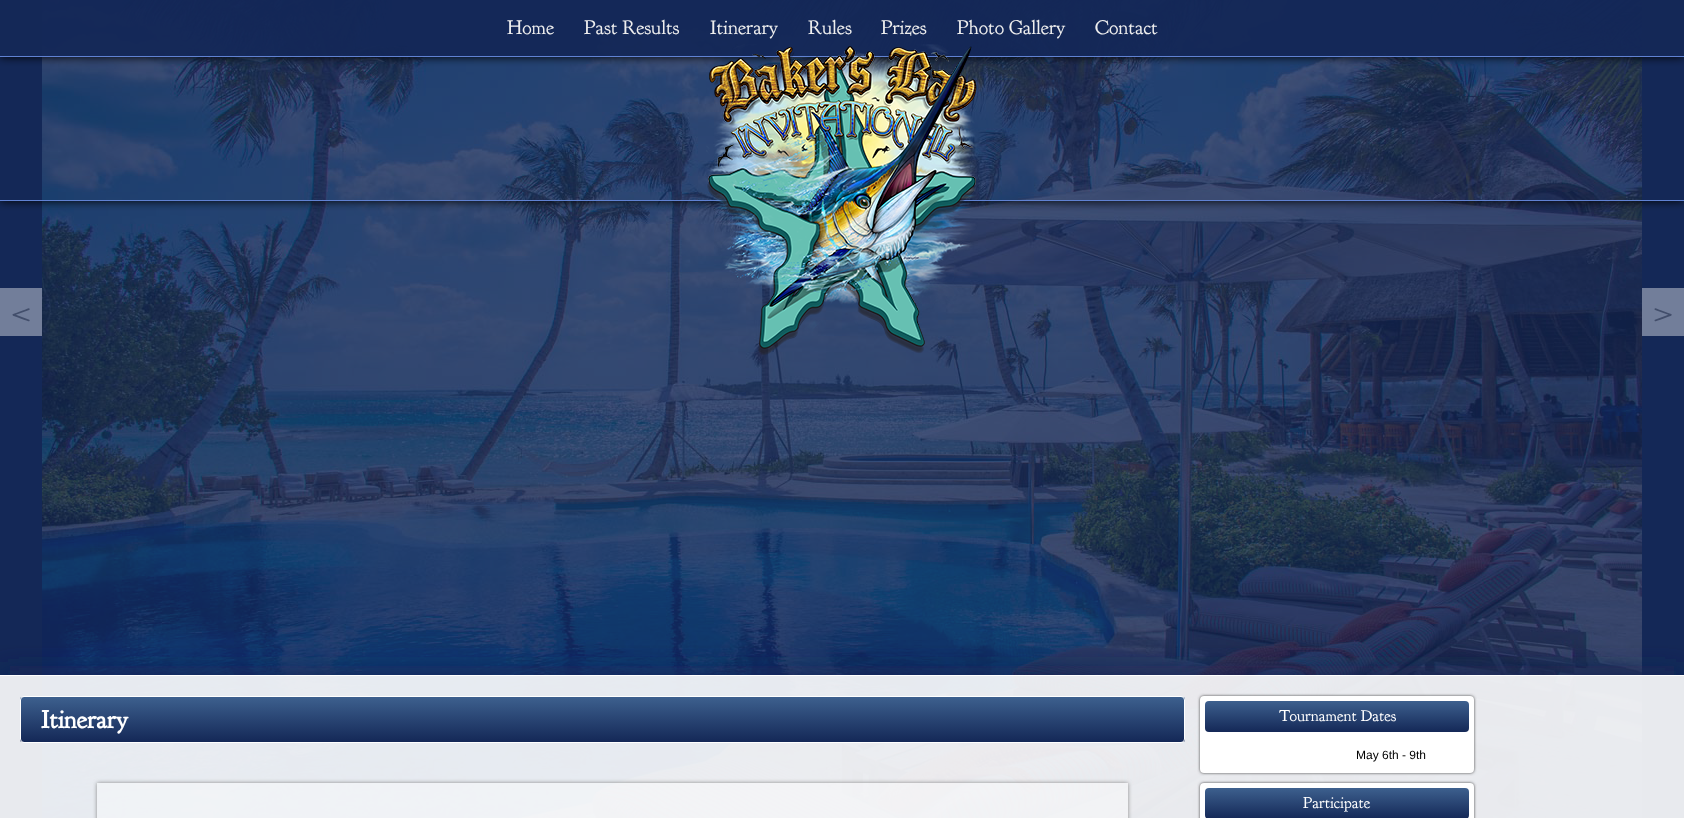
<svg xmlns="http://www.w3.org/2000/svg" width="1684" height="818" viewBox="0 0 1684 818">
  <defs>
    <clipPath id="clip1"><rect x="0" y="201" width="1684" height="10"/></clipPath>
    <filter id="blur1" x="-50%" y="-200%" width="200%" height="500%"><feGaussianBlur stdDeviation="5"/></filter>
    <clipPath id="clip2"><rect x="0" y="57" width="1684" height="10"/></clipPath>
    <clipPath id="clip3"><rect x="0" y="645" width="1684" height="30"/></clipPath>
    <filter id="blur2" x="-50%" y="-200%" width="200%" height="500%"><feGaussianBlur stdDeviation="15"/></filter>
    <clipPath id="clip4"><rect x="20" y="696" width="1165" height="47" rx="4"/></clipPath>
    <linearGradient id="g1" gradientUnits="userSpaceOnUse" x1="603" y1="697" x2="603" y2="742"><stop offset="0" stop-color="#3d608e"/><stop offset="1" stop-color="#142857"/></linearGradient>
    <clipPath id="clip5"><path d="M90 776H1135V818H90ZM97 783H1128V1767H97Z" clip-rule="evenodd"/></clipPath>
    <filter id="blur3" x="-50%" y="-200%" width="200%" height="500%"><feGaussianBlur stdDeviation="2"/></filter>
    <filter id="blur4" x="-50%" y="-200%" width="200%" height="500%"><feGaussianBlur stdDeviation="1.5"/></filter>
    <linearGradient id="g2" gradientUnits="userSpaceOnUse" x1="1337" y1="701" x2="1337" y2="732"><stop offset="0" stop-color="#3d608e"/><stop offset="1" stop-color="#142857"/></linearGradient>
    <linearGradient id="g3" gradientUnits="userSpaceOnUse" x1="1337" y1="788" x2="1337" y2="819"><stop offset="0" stop-color="#3d608e"/><stop offset="1" stop-color="#142857"/></linearGradient>
  </defs>
  <rect width="100%" height="100%" fill="#142857"/>
  <image x="42" y="0" width="1600" height="818" href="img1.png"/>
  <g clip-path="url(#clip1)">
    <rect x="0" y="0" width="1684" height="201" fill="#000000" filter="url(#blur1)"/>
  </g>
  <rect x="0" y="200" width="1684" height="1" fill="#6082d3"/>
  <g clip-path="url(#clip2)">
    <rect x="0" y="0" width="1684" height="57" fill="#000000" filter="url(#blur1)"/>
  </g>
  <rect x="42" y="0" width="1600" height="56" fill="#142857" fill-opacity="0.96"/>
  <rect x="0" y="56" width="1684" height="1" fill="#6082d3"/>
  <text x="507" y="34" font-family="'Goudy Bookletter 1911'" font-size="20" fill="#eeeeee">Home</text>
  <text x="584" y="34" font-family="'Goudy Bookletter 1911'" font-size="20" fill="#eeeeee">Past Results</text>
  <text x="710" y="34" font-family="'Goudy Bookletter 1911'" font-size="20" fill="#eeeeee">Itinerary</text>
  <text x="808" y="34" font-family="'Goudy Bookletter 1911'" font-size="20" fill="#eeeeee">Rules</text>
  <text x="881" y="34" font-family="'Goudy Bookletter 1911'" font-size="20" fill="#eeeeee">Prizes</text>
  <text x="957" y="34" font-family="'Goudy Bookletter 1911'" font-size="20" fill="#eeeeee">Photo Gallery</text>
  <text x="1095" y="34" font-family="'Goudy Bookletter 1911'" font-size="20" fill="#eeeeee">Contact</text>
  <image x="706" y="44" width="272" height="311" href="img2.png"/>
  <g clip-path="url(#clip3)">
    <rect x="0" y="676" width="1684" height="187" fill="#142857" filter="url(#blur2)"/>
  </g>
  <rect x="0" y="675" width="1684" height="1" fill="#ffffff"/>
  <rect x="0" y="288" width="42" height="48" fill="#727e9a"/>
  <text x="11" y="322" font-family="'Goudy Bookletter 1911'" font-size="30" fill="#424e6b">&lt;</text>
  <rect x="1642" y="288" width="42" height="48" fill="#727e9a"/>
  <text x="1653" y="322" font-family="'Goudy Bookletter 1911'" font-size="30" fill="#424e6b">&gt;</text>
  <rect x="0" y="676" width="1684" height="142" fill="#ffffff" fill-opacity="0.9"/>
  <g clip-path="url(#clip4)">
    <rect x="20" y="697" width="1165" height="45" fill="url(#g1)"/>
  </g>
  <rect x="20.5" y="696.5" width="1164" height="46" rx="3.5" fill="none" stroke="#ffffff"/>
  <text x="41" y="728" font-family="'Goudy Bookletter 1911'" font-size="25.5" font-weight="bold" fill="#ffffff">Itinerary</text>
  <g clip-path="url(#clip5)">
    <rect x="97" y="783" width="1031" height="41" fill="#888888" filter="url(#blur3)"/>
  </g>
  <rect x="97" y="783" width="1031" height="35" fill="#ffffff" fill-opacity="0.4"/>
  <rect x="1200" y="696" width="274" height="77" rx="4" fill="#444444" filter="url(#blur4)"/>
  <rect x="1200" y="696" width="274" height="77" rx="4" fill="#ffffff"/>
  <rect x="1205" y="701" width="264" height="31" rx="4" fill="url(#g2)"/>
  <text x="1279" y="721" font-family="'Goudy Bookletter 1911'" font-size="16" fill="#ffffff">Tournament Dates</text>
  <text x="1356" y="759" font-family="Liberation Sans" font-size="12" fill="#000000">May 6th - 9th</text>
  <rect x="1200" y="783" width="274" height="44" rx="4" fill="#444444" filter="url(#blur4)"/>
  <rect x="1200" y="783" width="274" height="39" rx="4" fill="#ffffff"/>
  <rect x="1205" y="788" width="264" height="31" rx="4" fill="url(#g3)"/>
  <text x="1303" y="808" font-family="'Goudy Bookletter 1911'" font-size="16" fill="#ffffff">Participate</text>
</svg>
